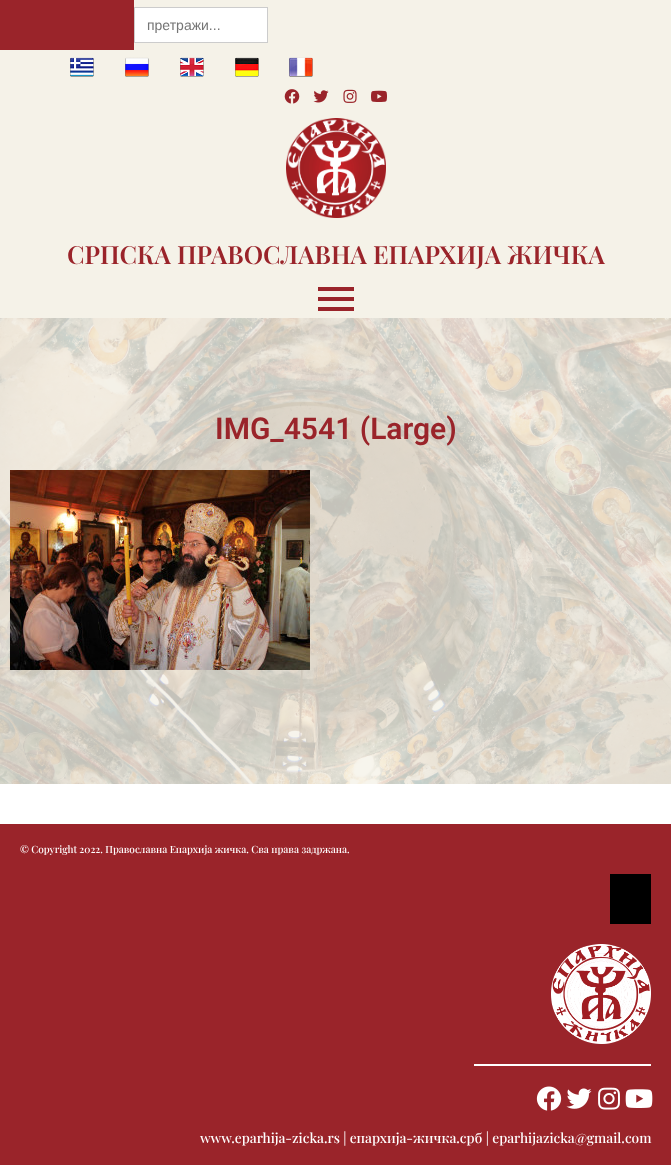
<svg xmlns="http://www.w3.org/2000/svg" width="671" height="1165" viewBox="0 0 671 1165">
  <rect width="100%" height="100%" fill="#ffffff"/>
  <rect x="0" y="0" width="671" height="318" fill="#f5f2e8"/>
  <rect x="0" y="0" width="134" height="50" fill="#9a242a"/>
  <rect x="134.5" y="7.5" width="133" height="35" fill="#ffffff" stroke="#cccccc"/>
  <text x="147" y="30" font-family="Liberation Sans" font-size="14" fill="#757575">претражи...</text>
  <image x="70" y="57" width="24" height="20" href="img1.png"/>
  <image x="125" y="57" width="24" height="20" href="img2.png"/>
  <image x="180" y="57" width="24" height="20" href="img3.png"/>
  <image x="235" y="57" width="24" height="20" href="img4.png"/>
  <image x="289" y="57" width="24" height="20" href="img5.png"/>
  <image x="284" y="89" width="16" height="15" href="img6.png"/>
  <image x="313" y="90" width="16" height="13" href="img7.png"/>
  <image x="343" y="89" width="14" height="14" href="img8.png"/>
  <image x="371" y="90" width="16" height="12" href="img9.png"/>
  <image x="286" y="118" width="100" height="100" href="img10.png"/>
  <text x="67" y="264" font-family="Playfair Display" font-size="25" font-weight="600" fill="#9a242a">СРПСКА ПРАВОСЛАВНА ЕПАРХИЈА ЖИЧКА</text>
  <rect x="318" y="287" width="36" height="4" fill="#9a242a"/>
  <rect x="318" y="297" width="36" height="4" fill="#9a242a"/>
  <rect x="318" y="307" width="36" height="4" fill="#9a242a"/>
  <image x="0" y="318" width="671" height="466" href="img11.png"/>
  <text x="215" y="439" font-family="Roboto" font-size="30" font-weight="600" fill="#9a242a">IMG_4541 (Large)</text>
  <image x="10" y="470" width="300" height="200" href="img12.png"/>
  <rect x="0" y="824" width="671" height="341" fill="#9a242a"/>
  <text x="20" y="853" font-family="Playfair Display" font-size="10" font-weight="500" fill="#ffffff">© Copyright 2022. Православна Епархија жичка. Сва права задржана.</text>
  <rect x="610" y="874" width="41" height="50" fill="#000000"/>
  <image x="551" y="944" width="100" height="100" href="img13.png"/>
  <rect x="474" y="1064" width="177" height="2" fill="#ffffff"/>
  <image x="536" y="1086" width="26" height="25" href="img14.png"/>
  <image x="566" y="1088" width="26" height="21" href="img15.png"/>
  <image x="598" y="1087" width="22" height="23" href="img16.png"/>
  <image x="625" y="1089" width="28" height="19" href="img17.png"/>
  <text x="200" y="1143" font-family="Playfair Display" font-size="13.7" font-weight="500" fill="#ffffff">www.eparhija-zicka.rs | епархија-жичка.срб | eparhijazicka@gmail.com</text>
</svg>
